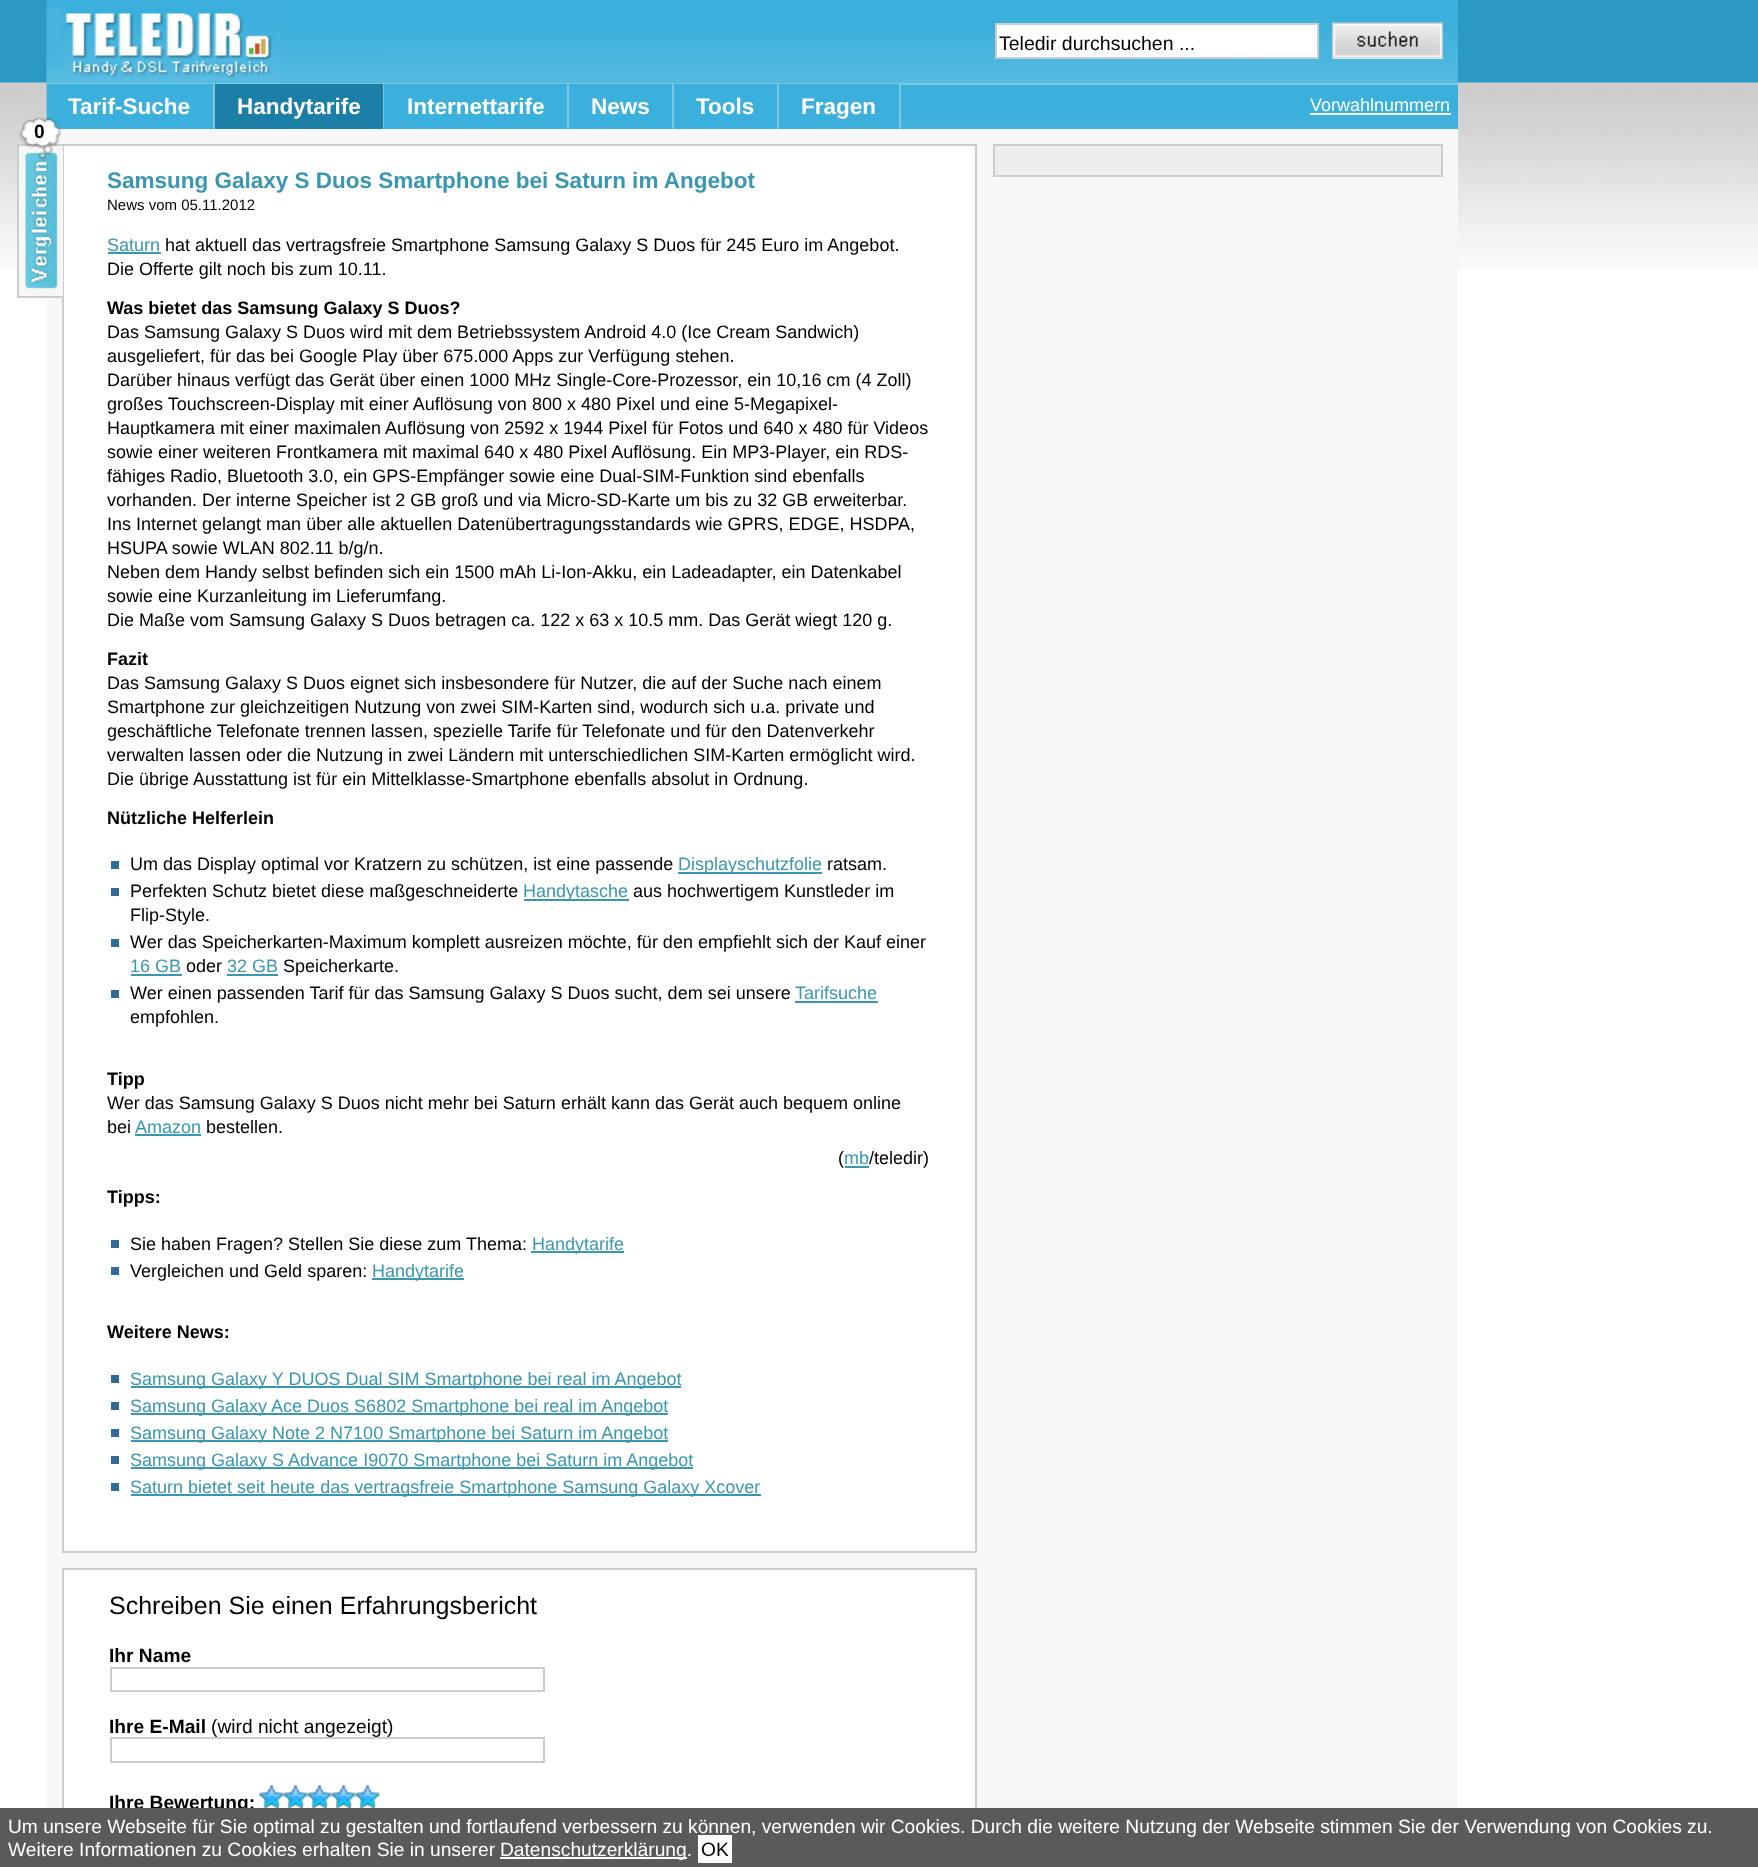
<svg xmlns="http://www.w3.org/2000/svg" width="1758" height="1867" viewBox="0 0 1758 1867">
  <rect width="100%" height="100%" fill="#ffffff"/>
  <image x="0" y="0" width="1758" height="270" href="img1.png"/>
  <rect x="47" y="129" width="1411" height="1679" fill="#f7f7f7"/>
  <rect x="63" y="145" width="913" height="1407" fill="#ffffff" stroke="#cccccc" stroke-width="2"/>
  <rect x="19" y="146" width="44" height="150" fill="#f7f7f7"/>
  <image x="25" y="152" width="33" height="137" href="img2.png"/>
  <rect x="17" y="144" width="46" height="2" fill="#cccccc"/>
  <rect x="17" y="296" width="46" height="2" fill="#cccccc"/>
  <rect x="17" y="144" width="2" height="153" fill="#cccccc"/>
  <image x="46" y="0" width="1412" height="123" href="img4.png"/>
  <image x="46" y="83" width="1412" height="46" href="img8.png"/>
  <rect x="47" y="83" width="1411" height="2" fill="#7fc6e1"/>
  <rect x="47" y="84" width="166" height="45" fill="#3cb0dc"/>
  <image x="19" y="117" width="43" height="43" href="img3.png"/>
  <text x="34" y="138" font-family="Liberation Sans" font-size="19.2" font-weight="bold" fill="#000000">0</text>
  <image x="46" y="0" width="234" height="83" href="img5.png"/>
  <image x="46" y="4" width="234" height="79" href="img6.png"/>
  <rect x="996" y="24" width="322" height="34" fill="#ffffff" stroke="#cccccc" stroke-width="2"/>
  <text x="999" y="50" font-family="Liberation Sans" font-size="19.5" fill="#000000">Teledir durchsuchen ...</text>
  <rect x="1332" y="58" width="111" height="1" fill="#ffffff"/>
  <image x="1332" y="22" width="111" height="37" href="img7.png"/>
  <rect x="213" y="84" width="2" height="45" fill="#7fc6e1"/>
  <text x="68" y="114" font-family="Liberation Sans" font-size="22.5" font-weight="bold" fill="#ffffff">Tarif-Suche</text>
  <rect x="215" y="84" width="168" height="45" fill="#1b7ea7"/>
  <rect x="383" y="84" width="1" height="45" fill="#7fc6e1"/>
  <text x="237" y="114" font-family="Liberation Sans" font-size="22.5" font-weight="bold" fill="#ffffff">Handytarife</text>
  <rect x="384" y="84" width="183" height="45" fill="#3cb0dc"/>
  <rect x="567" y="84" width="2" height="45" fill="#7fc6e1"/>
  <text x="407" y="114" font-family="Liberation Sans" font-size="22.5" font-weight="bold" fill="#ffffff">Internettarife</text>
  <rect x="569" y="84" width="103" height="45" fill="#3cb0dc"/>
  <rect x="672" y="84" width="2" height="45" fill="#7fc6e1"/>
  <text x="591" y="114" font-family="Liberation Sans" font-size="22.5" font-weight="bold" fill="#ffffff">News</text>
  <rect x="674" y="84" width="103" height="45" fill="#3cb0dc"/>
  <rect x="777" y="84" width="2" height="45" fill="#7fc6e1"/>
  <text x="696" y="114" font-family="Liberation Sans" font-size="22.5" font-weight="bold" fill="#ffffff">Tools</text>
  <rect x="779" y="84" width="120" height="45" fill="#3cb0dc"/>
  <rect x="899" y="84" width="2" height="45" fill="#7fc6e1"/>
  <text x="801" y="114" font-family="Liberation Sans" font-size="22.5" font-weight="bold" fill="#ffffff">Fragen</text>
  <text x="1310" y="111" font-family="Liberation Sans" font-size="18" fill="#ffffff">Vorwahlnummern</text>
  <rect x="1310" y="113" width="141" height="2" fill="#ffffff"/>
  <rect x="994" y="145" width="448" height="31" fill="#eeeeee" stroke="#cccccc" stroke-width="2"/>
  <text x="107" y="188" font-family="Liberation Sans" font-size="22.5" font-weight="bold" fill="#3997b0">Samsung Galaxy S Duos Smartphone bei Saturn im Angebot</text>
  <text x="107" y="210" font-family="Liberation Sans" font-size="15" fill="#000000">News vom 05.11.2012</text>
  <text x="107" y="251" font-family="Liberation Sans" font-size="18" fill="#3997b0">Saturn</text>
  <rect x="108" y="252" width="53" height="2" fill="#3997b0"/>
  <text x="165" y="251" font-family="Liberation Sans" font-size="18" fill="#000000">hat aktuell das vertragsfreie Smartphone Samsung Galaxy S Duos für 245 Euro im Angebot.</text>
  <text x="107" y="275" font-family="Liberation Sans" font-size="18" fill="#000000">Die Offerte gilt noch bis zum 10.11.</text>
  <text x="107" y="314" font-family="Liberation Sans" font-size="18" font-weight="bold" fill="#000000">Was bietet das Samsung Galaxy S Duos?</text>
  <text x="107" y="338" font-family="Liberation Sans" font-size="18" fill="#000000">Das Samsung Galaxy S Duos wird mit dem Betriebssystem Android 4.0 (Ice Cream Sandwich)</text>
  <text x="107" y="362" font-family="Liberation Sans" font-size="18" fill="#000000">ausgeliefert, für das bei Google Play über 675.000 Apps zur Verfügung stehen.</text>
  <text x="107" y="386" font-family="Liberation Sans" font-size="18" fill="#000000">Darüber hinaus verfügt das Gerät über einen 1000 MHz Single-Core-Prozessor, ein 10,16 cm (4 Zoll)</text>
  <text x="107" y="410" font-family="Liberation Sans" font-size="18" fill="#000000">großes Touchscreen-Display mit einer Auflösung von 800 x 480 Pixel und eine 5-Megapixel-</text>
  <text x="107" y="434" font-family="Liberation Sans" font-size="18" fill="#000000">Hauptkamera mit einer maximalen Auflösung von 2592 x 1944 Pixel für Fotos und 640 x 480 für Videos</text>
  <text x="107" y="458" font-family="Liberation Sans" font-size="18" fill="#000000">sowie einer weiteren Frontkamera mit maximal 640 x 480 Pixel Auflösung. Ein MP3-Player, ein RDS-</text>
  <text x="107" y="482" font-family="Liberation Sans" font-size="18" fill="#000000">fähiges Radio, Bluetooth 3.0, ein GPS-Empfänger sowie eine Dual-SIM-Funktion sind ebenfalls</text>
  <text x="107" y="506" font-family="Liberation Sans" font-size="18" fill="#000000">vorhanden. Der interne Speicher ist 2 GB groß und via Micro-SD-Karte um bis zu 32 GB erweiterbar.</text>
  <text x="107" y="530" font-family="Liberation Sans" font-size="18" fill="#000000">Ins Internet gelangt man über alle aktuellen Datenübertragungsstandards wie GPRS, EDGE, HSDPA,</text>
  <text x="107" y="554" font-family="Liberation Sans" font-size="18" fill="#000000">HSUPA sowie WLAN 802.11 b/g/n.</text>
  <text x="107" y="578" font-family="Liberation Sans" font-size="18" fill="#000000">Neben dem Handy selbst befinden sich ein 1500 mAh Li-Ion-Akku, ein Ladeadapter, ein Datenkabel</text>
  <text x="107" y="602" font-family="Liberation Sans" font-size="18" fill="#000000">sowie eine Kurzanleitung im Lieferumfang.</text>
  <text x="107" y="626" font-family="Liberation Sans" font-size="18" fill="#000000">Die Maße vom Samsung Galaxy S Duos betragen ca. 122 x 63 x 10.5 mm. Das Gerät wiegt 120 g.</text>
  <text x="107" y="665" font-family="Liberation Sans" font-size="18" font-weight="bold" fill="#000000">Fazit</text>
  <text x="107" y="689" font-family="Liberation Sans" font-size="18" fill="#000000">Das Samsung Galaxy S Duos eignet sich insbesondere für Nutzer, die auf der Suche nach einem</text>
  <text x="107" y="713" font-family="Liberation Sans" font-size="18" fill="#000000">Smartphone zur gleichzeitigen Nutzung von zwei SIM-Karten sind, wodurch sich u.a. private und</text>
  <text x="107" y="737" font-family="Liberation Sans" font-size="18" fill="#000000">geschäftliche Telefonate trennen lassen, spezielle Tarife für Telefonate und für den Datenverkehr</text>
  <text x="107" y="761" font-family="Liberation Sans" font-size="18" fill="#000000">verwalten lassen oder die Nutzung in zwei Ländern mit unterschiedlichen SIM-Karten ermöglicht wird.</text>
  <text x="107" y="785" font-family="Liberation Sans" font-size="18" fill="#000000">Die übrige Ausstattung ist für ein Mittelklasse-Smartphone ebenfalls absolut in Ordnung.</text>
  <text x="107" y="824" font-family="Liberation Sans" font-size="18" font-weight="bold" fill="#000000">Nützliche Helferlein</text>
  <rect x="111" y="861" width="8" height="8" fill="#306b97"/>
  <text x="130" y="870" font-family="Liberation Sans" font-size="18" fill="#000000">Um das Display optimal vor Kratzern zu schützen, ist eine passende</text>
  <rect x="678" y="872" width="144" height="2" fill="#3997b0"/>
  <text x="678" y="870" font-family="Liberation Sans" font-size="18" fill="#3997b0">Displayschutzfolie</text>
  <text x="827" y="870" font-family="Liberation Sans" font-size="18" fill="#000000">ratsam.</text>
  <rect x="111" y="888" width="8" height="8" fill="#306b97"/>
  <text x="130" y="897" font-family="Liberation Sans" font-size="18" fill="#000000">Perfekten Schutz bietet diese maßgeschneiderte</text>
  <rect x="524" y="899" width="105" height="2" fill="#3997b0"/>
  <text x="523" y="897" font-family="Liberation Sans" font-size="18" fill="#3997b0">Handytasche</text>
  <text x="633" y="897" font-family="Liberation Sans" font-size="18" fill="#000000">aus hochwertigem Kunstleder im</text>
  <text x="130" y="921" font-family="Liberation Sans" font-size="18" fill="#000000">Flip-Style.</text>
  <rect x="111" y="939" width="8" height="8" fill="#306b97"/>
  <text x="130" y="948" font-family="Liberation Sans" font-size="18" fill="#000000">Wer das Speicherkarten-Maximum komplett ausreizen möchte, für den empfiehlt sich der Kauf einer</text>
  <text x="130" y="972" font-family="Liberation Sans" font-size="18" fill="#3997b0">16 GB</text>
  <rect x="131" y="974" width="51" height="2" fill="#3997b0"/>
  <text x="186" y="972" font-family="Liberation Sans" font-size="18" fill="#000000">oder</text>
  <text x="227" y="972" font-family="Liberation Sans" font-size="18" fill="#3997b0">32 GB</text>
  <rect x="227" y="974" width="51" height="2" fill="#3997b0"/>
  <text x="283" y="972" font-family="Liberation Sans" font-size="18" fill="#000000">Speicherkarte.</text>
  <rect x="111" y="990" width="8" height="8" fill="#306b97"/>
  <text x="130" y="999" font-family="Liberation Sans" font-size="18" fill="#000000">Wer einen passenden Tarif für das Samsung Galaxy S Duos sucht, dem sei unsere</text>
  <text x="795" y="999" font-family="Liberation Sans" font-size="18" fill="#3997b0">Tarifsuche</text>
  <rect x="795" y="1001" width="83" height="2" fill="#3997b0"/>
  <text x="130" y="1023" font-family="Liberation Sans" font-size="18" fill="#000000">empfohlen.</text>
  <text x="107" y="1085" font-family="Liberation Sans" font-size="18" font-weight="bold" fill="#000000">Tipp</text>
  <text x="107" y="1109" font-family="Liberation Sans" font-size="18" fill="#000000">Wer das Samsung Galaxy S Duos nicht mehr bei Saturn erhält kann das Gerät auch bequem online</text>
  <text x="107" y="1133" font-family="Liberation Sans" font-size="18" fill="#000000">bei</text>
  <text x="135" y="1133" font-family="Liberation Sans" font-size="18" fill="#3997b0">Amazon</text>
  <rect x="135" y="1134" width="66" height="2" fill="#3997b0"/>
  <text x="206" y="1133" font-family="Liberation Sans" font-size="18" fill="#000000">bestellen.</text>
  <text x="838" y="1164" font-family="Liberation Sans" font-size="18" fill="#000000">(</text>
  <text x="844" y="1164" font-family="Liberation Sans" font-size="18" fill="#3997b0">mb</text>
  <rect x="845" y="1166" width="24" height="2" fill="#3997b0"/>
  <text x="869" y="1164" font-family="Liberation Sans" font-size="18" fill="#000000">/teledir)</text>
  <text x="107" y="1203" font-family="Liberation Sans" font-size="18" font-weight="bold" fill="#000000">Tipps:</text>
  <rect x="111" y="1240" width="8" height="8" fill="#306b97"/>
  <text x="130" y="1250" font-family="Liberation Sans" font-size="18" fill="#000000">Sie haben Fragen? Stellen Sie diese zum Thema:</text>
  <rect x="531" y="1251" width="93" height="2" fill="#3997b0"/>
  <text x="532" y="1250" font-family="Liberation Sans" font-size="18" fill="#3997b0">Handytarife</text>
  <rect x="111" y="1267" width="8" height="8" fill="#306b97"/>
  <text x="130" y="1277" font-family="Liberation Sans" font-size="18" fill="#000000">Vergleichen und Geld sparen:</text>
  <rect x="372" y="1278" width="92" height="2" fill="#3997b0"/>
  <text x="372" y="1277" font-family="Liberation Sans" font-size="18" fill="#3997b0">Handytarife</text>
  <text x="107" y="1338" font-family="Liberation Sans" font-size="18" font-weight="bold" fill="#000000">Weitere News:</text>
  <rect x="111" y="1375" width="8" height="8" fill="#306b97"/>
  <rect x="131" y="1386" width="550" height="2" fill="#3997b0"/>
  <text x="130" y="1385" font-family="Liberation Sans" font-size="18" fill="#3997b0">Samsung Galaxy Y DUOS Dual SIM Smartphone bei real im Angebot</text>
  <rect x="111" y="1402" width="8" height="8" fill="#306b97"/>
  <rect x="131" y="1413" width="537" height="2" fill="#3997b0"/>
  <text x="130" y="1412" font-family="Liberation Sans" font-size="18" fill="#3997b0">Samsung Galaxy Ace Duos S6802 Smartphone bei real im Angebot</text>
  <rect x="111" y="1429" width="8" height="8" fill="#306b97"/>
  <rect x="131" y="1440" width="537" height="2" fill="#3997b0"/>
  <text x="130" y="1439" font-family="Liberation Sans" font-size="18" fill="#3997b0">Samsung Galaxy Note 2 N7100 Smartphone bei Saturn im Angebot</text>
  <rect x="111" y="1456" width="8" height="8" fill="#306b97"/>
  <rect x="131" y="1467" width="562" height="2" fill="#3997b0"/>
  <text x="130" y="1466" font-family="Liberation Sans" font-size="18" fill="#3997b0">Samsung Galaxy S Advance I9070 Smartphone bei Saturn im Angebot</text>
  <rect x="111" y="1483" width="8" height="8" fill="#306b97"/>
  <rect x="131" y="1494" width="630" height="2" fill="#3997b0"/>
  <text x="130" y="1493" font-family="Liberation Sans" font-size="18" fill="#3997b0">Saturn bietet seit heute das vertragsfreie Smartphone Samsung Galaxy Xcover</text>
  <rect x="64" y="1570" width="911" height="238" fill="#ffffff"/>
  <rect x="63" y="1569" width="913" height="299" fill="none" stroke="#cccccc" stroke-width="2"/>
  <text x="109" y="1614" font-family="Liberation Sans" font-size="25" fill="#000000">Schreiben Sie einen Erfahrungsbericht</text>
  <text x="109" y="1662" font-family="Liberation Sans" font-size="19.2" font-weight="bold" fill="#000000">Ihr Name</text>
  <rect x="111" y="1668" width="433" height="23" fill="none" stroke="#cccccc" stroke-width="2"/>
  <text x="109" y="1733" font-family="Liberation Sans" font-size="19.2" font-weight="bold" fill="#000000">Ihre E-Mail</text>
  <text x="211" y="1733" font-family="Liberation Sans" font-size="19.2" fill="#000000">(wird nicht angezeigt)</text>
  <rect x="111" y="1738" width="433" height="24" fill="none" stroke="#cccccc" stroke-width="2"/>
  <text x="109" y="1809" font-family="Liberation Sans" font-size="19.2" font-weight="bold" fill="#000000">Ihre Bewertung:</text>
  <image x="259" y="1785" width="25" height="23" href="img9.png"/>
  <image x="283" y="1785" width="25" height="23" href="img10.png"/>
  <image x="307" y="1785" width="25" height="23" href="img11.png"/>
  <image x="331" y="1785" width="25" height="23" href="img11.png"/>
  <image x="355" y="1785" width="25" height="23" href="img10.png"/>
  <rect x="0" y="1808" width="1758" height="59" fill="#5a5a5a"/>
  <text x="8" y="1833" font-family="Liberation Sans" font-size="19.2" fill="#ffffff">Um unsere Webseite für Sie optimal zu gestalten und fortlaufend verbessern zu können, verwenden wir Cookies. Durch die weitere Nutzung der Webseite stimmen Sie der Verwendung von Cookies zu.</text>
  <text x="8" y="1856" font-family="Liberation Sans" font-size="19.2" fill="#ffffff">Weitere Informationen zu Cookies erhalten Sie in unserer</text>
  <rect x="500" y="1857" width="187" height="2" fill="#ffffff"/>
  <text x="500" y="1856" font-family="Liberation Sans" font-size="19.2" fill="#ffffff">Datenschutzerklärung.</text>
  <rect x="698" y="1835" width="34" height="28" fill="#ffffff"/>
  <text x="701" y="1856" font-family="Liberation Sans" font-size="19.2" fill="#000000">OK</text>
</svg>
